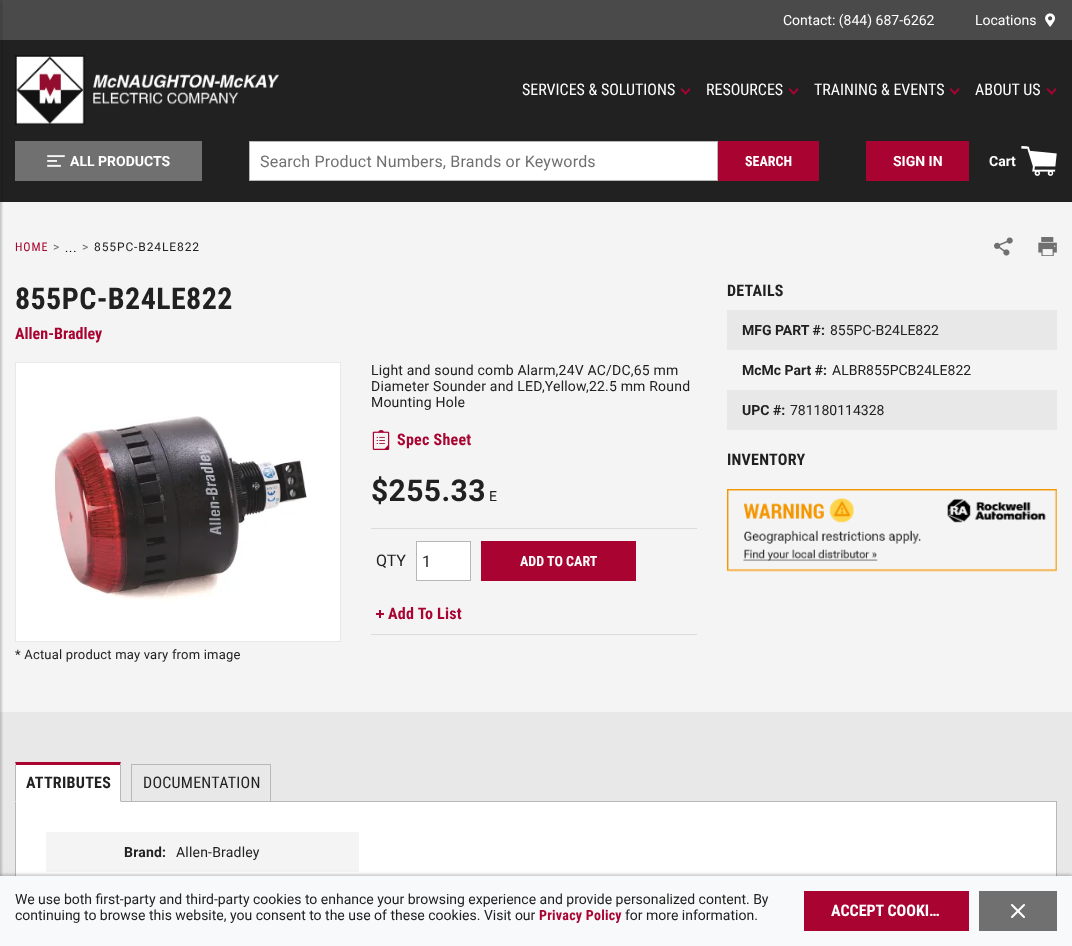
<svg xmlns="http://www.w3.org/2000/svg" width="1072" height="946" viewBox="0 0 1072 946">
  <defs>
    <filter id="blur1" x="-50%" y="-200%" width="200%" height="500%"><feGaussianBlur stdDeviation="2"/></filter>
  </defs>
  <rect width="100%" height="100%" fill="#f4f4f4"/>
  <rect x="0" y="40" width="1072" height="162" fill="#212121"/>
  <rect x="0" y="0" width="1072" height="40" fill="#4a4a4a"/>
  <rect x="0" y="712" width="1072" height="164" fill="#e8e8e8"/>
  <rect x="-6" y="0" width="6" height="946" fill="#212121" fill-opacity="0.5" filter="url(#blur1)"/>
  <text x="783" y="25" font-family="Roboto" font-size="14" fill="#ffffff">Contact: (844) 687-6262</text>
  <text x="975" y="25" font-family="Roboto" font-size="14" fill="#ffffff">Locations</text>
  <image x="1045" y="13" width="11" height="14" href="img1.png"/>
  <image x="15" y="55" width="264" height="70" href="img2.png"/>
  <text x="522" y="95" font-family="Roboto Condensed" font-size="16" fill="#ffffff">SERVICES &amp; SOLUTIONS</text>
  <image x="680" y="88" width="11" height="7" href="img3.png"/>
  <text x="706" y="95" font-family="Roboto Condensed" font-size="16" fill="#ffffff">RESOURCES</text>
  <image x="788" y="88" width="11" height="7" href="img3.png"/>
  <text x="814" y="95" font-family="Roboto Condensed" font-size="16" fill="#ffffff">TRAINING &amp; EVENTS</text>
  <image x="949" y="88" width="11" height="7" href="img3.png"/>
  <text x="975" y="95" font-family="Roboto Condensed" font-size="16" fill="#ffffff">ABOUT US</text>
  <image x="1046" y="88" width="11" height="7" href="img3.png"/>
  <rect x="15" y="141" width="187" height="40" fill="#707070"/>
  <image x="47" y="155" width="18" height="12" href="img4.png"/>
  <text x="70" y="166" font-family="Roboto" font-size="14" font-weight="bold" fill="#ffffff">ALL PRODUCTS</text>
  <rect x="249.5" y="141.5" width="468" height="39" fill="#ffffff" stroke="#b7b7b7"/>
  <text x="260" y="167" font-family="Roboto" font-size="16" letter-spacing="0.2" fill="#707070">Search Product Numbers, Brands or Keywords</text>
  <rect x="718" y="141" width="101" height="40" fill="#a80331"/>
  <text x="745" y="166" font-family="Roboto Condensed" font-size="14" font-weight="bold" fill="#ffffff">SEARCH</text>
  <rect x="866" y="141" width="103" height="40" fill="#a80331"/>
  <text x="893" y="166" font-family="Roboto" font-size="14" font-weight="bold" fill="#ffffff">SIGN IN</text>
  <text x="989" y="166" font-family="Roboto" font-size="14" font-weight="bold" fill="#ffffff">Cart</text>
  <image x="1021" y="146" width="36" height="30" href="img5.png"/>
  <text x="15" y="251" font-family="Roboto Condensed" font-size="12" letter-spacing="0.9" fill="#a80331">HOME</text>
  <text x="53" y="251" font-family="Roboto" font-size="12" letter-spacing="0.9" fill="#707070">&gt;</text>
  <text x="82" y="251" font-family="Roboto" font-size="12" letter-spacing="0.9" fill="#707070">&gt;</text>
  <text x="94" y="251" font-family="Roboto" font-size="12" letter-spacing="0.9" fill="#212121">855PC-B24LE822</text>
  <text x="65" y="252" font-family="Roboto" font-size="12" letter-spacing="0.9" fill="#000000">...</text>
  <image x="994" y="237" width="19" height="19" href="img6.png"/>
  <image x="1038" y="237" width="19" height="19" href="img7.png"/>
  <text x="15" y="309" font-family="Roboto Condensed" font-size="30" font-weight="bold" letter-spacing="0.4" fill="#212121">855PC-B24LE822</text>
  <text x="15" y="339" font-family="Roboto Condensed" font-size="16" font-weight="bold" fill="#a80331">Allen-Bradley</text>
  <text x="371" y="375" font-family="Roboto" font-size="14" letter-spacing="0.2" fill="#212121">Light and sound comb Alarm,24V AC/DC,65 mm</text>
  <text x="371" y="391" font-family="Roboto" font-size="14" letter-spacing="0.2" fill="#212121">Diameter Sounder and LED,Yellow,22.5 mm Round</text>
  <text x="371" y="407" font-family="Roboto" font-size="14" letter-spacing="0.2" fill="#212121">Mounting Hole</text>
  <image x="372" y="430" width="18" height="20" href="img8.png"/>
  <text x="397" y="445" font-family="Roboto Condensed" font-size="16" font-weight="bold" letter-spacing="0.25" fill="#a80331">Spec Sheet</text>
  <text x="371" y="501" font-family="Roboto" font-size="30" font-weight="bold" letter-spacing="0.4" fill="#212121">$255.33</text>
  <text x="489" y="501" font-family="Roboto" font-size="14" fill="#212121">E</text>
  <rect x="371" y="528" width="326" height="1" fill="#dcdcdc"/>
  <rect x="371" y="634" width="326" height="1" fill="#dcdcdc"/>
  <text x="376" y="566" font-family="Roboto" font-size="16" fill="#212121">QTY</text>
  <rect x="416.5" y="541.5" width="54" height="39" fill="#ffffff" stroke="#b7b7b7"/>
  <text x="422" y="567" font-family="Roboto" font-size="16" letter-spacing="0.2" fill="#212121">1</text>
  <rect x="481" y="541" width="155" height="40" fill="#a80331"/>
  <text x="520" y="566" font-family="Roboto Condensed" font-size="14" font-weight="bold" fill="#ffffff">ADD TO CART</text>
  <image x="376" y="610" width="8" height="8" href="img9.png"/>
  <text x="388" y="619" font-family="Roboto Condensed" font-size="16" font-weight="bold" letter-spacing="0.25" fill="#a80331">Add To List</text>
  <rect x="15.5" y="362.5" width="325" height="279" fill="#ffffff" stroke="#e8e8e8"/>
  <image x="53" y="416" width="254" height="186" href="img10.png"/>
  <text x="15" y="659" font-family="Roboto" font-size="13" letter-spacing="0.2" fill="#212121">* Actual product may vary from image</text>
  <text x="727" y="296" font-family="Roboto Condensed" font-size="16" font-weight="bold" letter-spacing="0.25" fill="#212121">DETAILS</text>
  <rect x="727" y="310" width="330" height="40" fill="#e8e8e8"/>
  <text x="742" y="335" font-family="Roboto" font-size="14" font-weight="bold" fill="#212121">MFG PART #:</text>
  <text x="830" y="335" font-family="Roboto" font-size="14" fill="#212121">855PC-B24LE822</text>
  <text x="742" y="375" font-family="Roboto" font-size="14" font-weight="bold" fill="#212121">McMc Part #:</text>
  <text x="832" y="375" font-family="Roboto" font-size="14" fill="#212121">ALBR855PCB24LE822</text>
  <rect x="727" y="390" width="330" height="40" fill="#e8e8e8"/>
  <text x="742" y="415" font-family="Roboto" font-size="14" font-weight="bold" fill="#212121">UPC #:</text>
  <text x="790" y="415" font-family="Roboto" font-size="14" fill="#212121">781180114328</text>
  <text x="727" y="465" font-family="Roboto Condensed" font-size="16" font-weight="bold" letter-spacing="0.25" fill="#212121">INVENTORY</text>
  <image x="727" y="489" width="330" height="83" href="img11.png"/>
  <rect x="16" y="802" width="1040" height="74" fill="#ffffff"/>
  <rect x="15.5" y="801.5" width="1041" height="101" fill="none" stroke="#b7b7b7"/>
  <rect x="15" y="762" width="106" height="40" fill="#ffffff"/>
  <path d="M15 762H121L120 765H16Z" fill="#a80331"/>
  <path d="M121 762V802L120 801V765Z" fill="#b7b7b7"/>
  <path d="M15 802V762L16 765V801Z" fill="#b7b7b7"/>
  <text x="26" y="788" font-family="Roboto Condensed" font-size="16" font-weight="bold" letter-spacing="0.25" fill="#212121">ATTRIBUTES</text>
  <rect x="131.5" y="764.5" width="139" height="37" fill="none" stroke="#b7b7b7"/>
  <text x="143" y="788" font-family="Roboto Condensed" font-size="16" letter-spacing="0.25" fill="#212121">DOCUMENTATION</text>
  <rect x="46" y="832" width="313" height="40" fill="#f4f4f4"/>
  <text x="124" y="857" font-family="Roboto" font-size="14" font-weight="bold" letter-spacing="0.2" fill="#212121">Brand:</text>
  <text x="176" y="857" font-family="Roboto" font-size="14" letter-spacing="0.2" fill="#212121">Allen-Bradley</text>
  <rect x="0" y="876" width="1072" height="70" fill="#212121" fill-opacity="0.5" filter="url(#blur1)"/>
  <rect x="0" y="876" width="1072" height="70" fill="#f8f9fa"/>
  <text x="15" y="904" font-family="Roboto" font-size="14" fill="#212121">We use both first-party and third-party cookies to enhance your browsing experience and provide personalized content. By</text>
  <text x="15" y="920" font-family="Roboto" font-size="14" fill="#212121">continuing to browse this website, you consent to the use of these cookies. Visit our</text>
  <text x="539" y="920" font-family="Roboto Condensed" font-size="14" font-weight="bold" letter-spacing="0.25" fill="#a80331">Privacy Policy</text>
  <text x="625" y="920" font-family="Roboto" font-size="14" fill="#212121">for more information.</text>
  <rect x="804" y="891" width="165" height="40" fill="#a80331"/>
  <text x="831" y="916" font-family="Roboto Condensed" font-size="16" font-weight="bold" fill="#ffffff">ACCEPT COOKI…</text>
  <rect x="979" y="891" width="78" height="40" fill="#707070"/>
  <path d="M1024 905L1012 917M1012 905L1024 917" fill="none" stroke="#ffffff" stroke-width="2" stroke-linecap="round" stroke-linejoin="round"/>
</svg>
